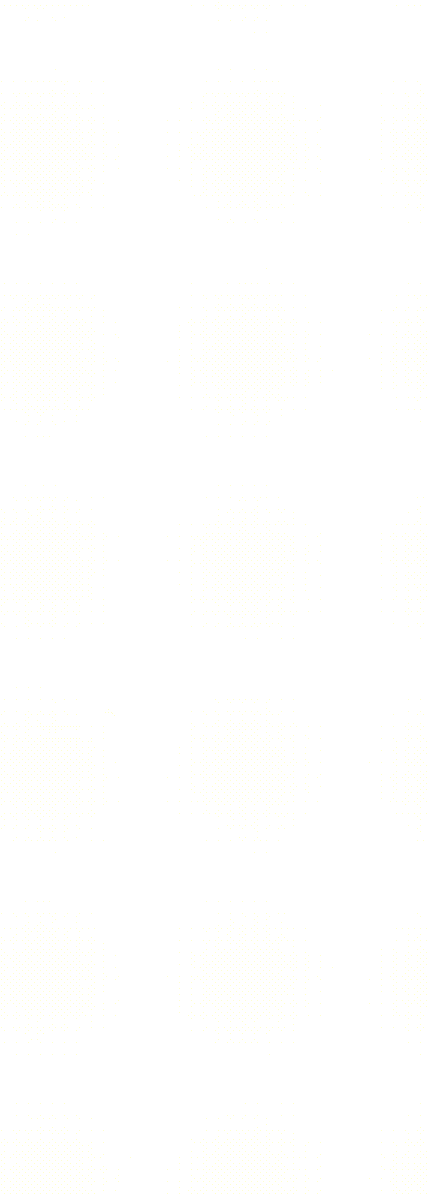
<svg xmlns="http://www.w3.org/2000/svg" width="429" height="1195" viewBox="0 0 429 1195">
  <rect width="100%" height="100%" fill="#ffffff"/>
  <image x="1" y="2" width="426" height="1192" href="img1.png"/>
</svg>
